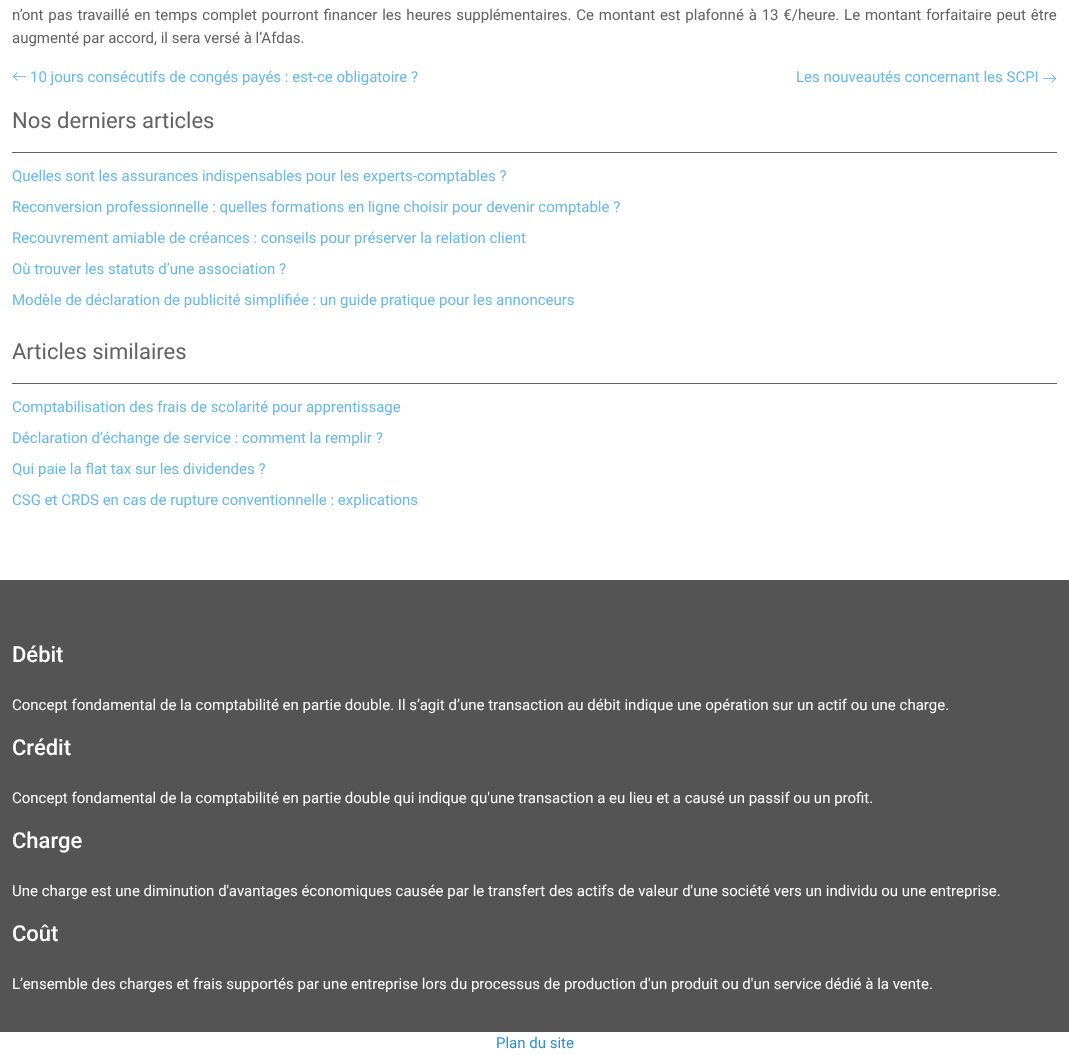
<svg xmlns="http://www.w3.org/2000/svg" width="1069" height="1055" viewBox="0 0 1069 1055">
  <rect width="100%" height="100%" fill="#ffffff"/>
  <text x="12" y="20" word-spacing="1.1" font-family="Roboto" font-size="15" fill="#626262">n’ont pas travaillé en temps complet pourront financer les heures supplémentaires. Ce montant est plafonné à 13 €/heure. Le montant forfaitaire peut être</text>
  <text x="12" y="43" font-family="Roboto" font-size="15" fill="#626262">augmenté par accord, il sera versé à l’Afdas.</text>
  <image x="13" y="72" width="13" height="9" href="img1.png"/>
  <text x="30" y="82" font-family="Roboto" font-size="15" fill="#67b8ed">10 jours consécutifs de congés payés : est-ce obligatoire ?</text>
  <text x="796" y="82" font-family="Roboto" font-size="15" fill="#67b8ed">Les nouveautés concernant les SCPI</text>
  <image x="1043" y="74" width="13" height="9" href="img2.png"/>
  <rect x="12" y="152" width="1045" height="1" fill="#626262"/>
  <text x="12" y="128" font-family="Roboto" font-size="22" fill="#626262">Nos derniers articles</text>
  <text x="12" y="181" font-family="Roboto" font-size="15" fill="#67b8ed">Quelles sont les assurances indispensables pour les experts-comptables ?</text>
  <text x="12" y="212" font-family="Roboto" font-size="15" fill="#67b8ed">Reconversion professionnelle : quelles formations en ligne choisir pour devenir comptable ?</text>
  <text x="12" y="243" font-family="Roboto" font-size="15" fill="#67b8ed">Recouvrement amiable de créances : conseils pour préserver la relation client</text>
  <text x="12" y="274" font-family="Roboto" font-size="15" fill="#67b8ed">Où trouver les statuts d’une association ?</text>
  <text x="12" y="305" font-family="Roboto" font-size="15" fill="#67b8ed">Modèle de déclaration de publicité simplifiée : un guide pratique pour les annonceurs</text>
  <rect x="12" y="383" width="1045" height="1" fill="#626262"/>
  <text x="12" y="359" font-family="Roboto" font-size="22" fill="#626262">Articles similaires</text>
  <text x="12" y="412" font-family="Roboto" font-size="15" fill="#67b8ed">Comptabilisation des frais de scolarité pour apprentissage</text>
  <text x="12" y="443" font-family="Roboto" font-size="15" fill="#67b8ed">Déclaration d’échange de service : comment la remplir ?</text>
  <text x="12" y="474" font-family="Roboto" font-size="15" fill="#67b8ed">Qui paie la flat tax sur les dividendes ?</text>
  <text x="12" y="505" font-family="Roboto" font-size="15" fill="#67b8ed">CSG et CRDS en cas de rupture conventionnelle : explications</text>
  <rect x="0" y="580" width="1069" height="452" fill="#545454"/>
  <text x="12" y="662" font-family="Roboto" font-size="22" font-weight="500" fill="#ffffff">Débit</text>
  <text x="12" y="710" font-family="Roboto" font-size="15" fill="#ffffff">Concept fondamental de la comptabilité en partie double. Il s’agit d’une transaction au débit indique une opération sur un actif ou une charge.</text>
  <text x="12" y="755" font-family="Roboto" font-size="22" font-weight="500" fill="#ffffff">Crédit</text>
  <text x="12" y="803" font-family="Roboto" font-size="15" fill="#ffffff">Concept fondamental de la comptabilité en partie double qui indique qu'une transaction a eu lieu et a causé un passif ou un profit.</text>
  <text x="12" y="848" font-family="Roboto" font-size="22" font-weight="500" fill="#ffffff">Charge</text>
  <text x="12" y="896" font-family="Roboto" font-size="15" fill="#ffffff">Une charge est une diminution d'avantages économiques causée par le transfert des actifs de valeur d'une société vers un individu ou une entreprise.</text>
  <text x="12" y="941" font-family="Roboto" font-size="22" font-weight="500" fill="#ffffff">Coût</text>
  <text x="12" y="989" font-family="Roboto" font-size="15" fill="#ffffff">L’ensemble des charges et frais supportés par une entreprise lors du processus de production d'un produit ou d'un service dédié à la vente.</text>
  <text x="496" y="1048" font-family="Roboto" font-size="15" fill="#2991d6">Plan du site</text>
</svg>
